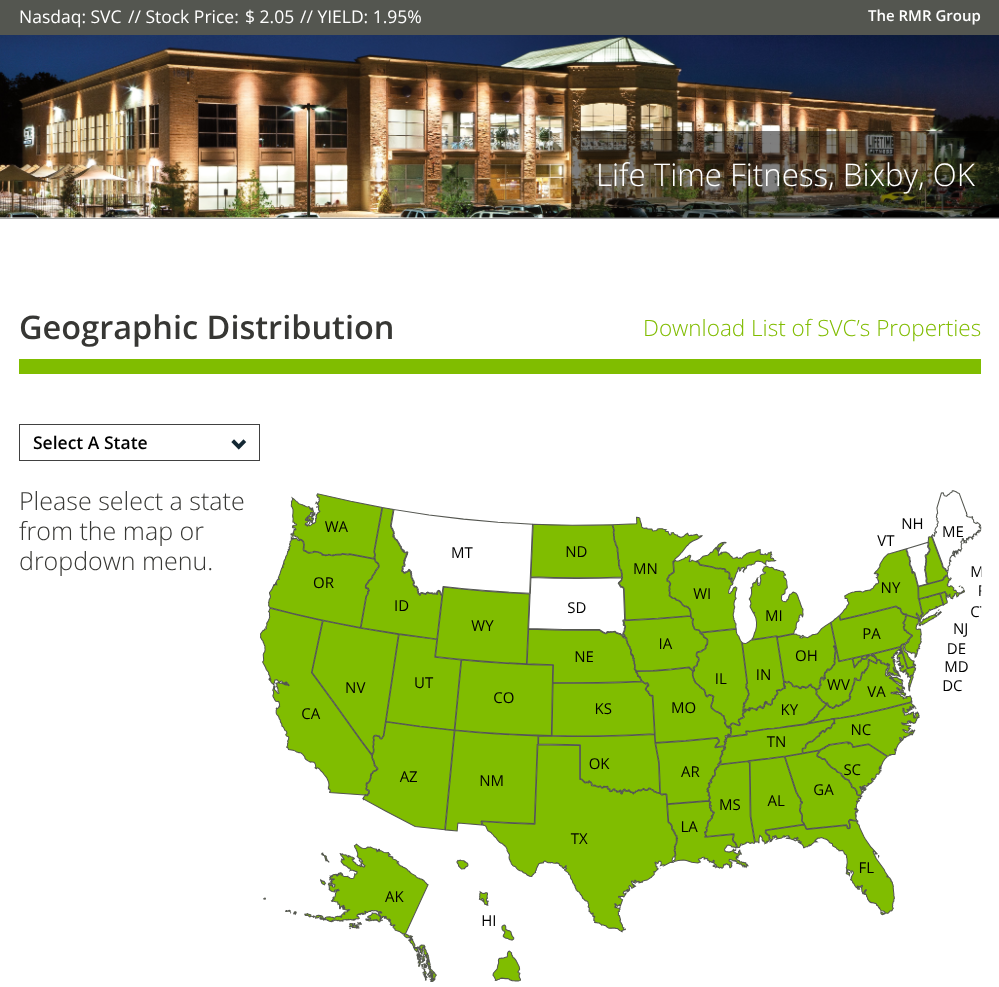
<svg xmlns="http://www.w3.org/2000/svg" width="999" height="987" viewBox="0 0 999 987">
  <rect width="100%" height="100%" fill="#ffffff"/>
  <rect x="0" y="0" width="999" height="35" fill="#545650"/>
  <text x="19" y="23" font-family="Open Sans" font-size="17.5" fill="#ffffff">Nasdaq: SVC</text>
  <text x="128" y="23" font-family="Open Sans" font-size="17.5" fill="#ffffff">// Stock Price:</text>
  <text x="245" y="23" font-family="Open Sans" font-size="17.5" fill="#ffffff">$ 2.05</text>
  <text x="300" y="23" font-family="Open Sans" font-size="17.5" fill="#ffffff">// YIELD: 1.95%</text>
  <text x="868" y="21" font-family="Open Sans" font-size="15" font-weight="600" fill="#ffffff">The RMR Group</text>
  <image x="0" y="35" width="999" height="183" href="img1.png"/>
  <rect x="571" y="131" width="428" height="87" fill="#000000" fill-opacity="0.5"/>
  <text x="596" y="186" font-family="Open Sans" font-size="31.25" font-weight="300" fill="#ffffff">Life Time Fitness, Bixby, OK</text>
  <rect x="0" y="218" width="999" height="1" fill="#a0a0a0"/>
  <rect x="19" y="359" width="962" height="15" fill="#80bd00"/>
  <text x="19" y="339" font-family="Open Sans" font-size="32.5" font-weight="600" fill="#373734">Geographic Distribution</text>
  <rect x="19.5" y="424.5" width="240" height="36" fill="none" stroke="#414141"/>
  <text x="33" y="449" font-family="Open Sans" font-size="17.5" font-weight="600" fill="#000000">Select A State</text>
  <image x="231" y="439" width="16" height="11" href="img2.png"/>
  <text x="19" y="510" font-family="Open Sans" font-size="25" font-weight="300" fill="#373734">Please select a state</text>
  <text x="19" y="540" font-family="Open Sans" font-size="25" font-weight="300" fill="#373734">from the map or</text>
  <text x="19" y="570" font-family="Open Sans" font-size="25" font-weight="300" fill="#373734">dropdown menu.</text>
  <image x="260" y="490" width="722" height="492" href="img3.png"/>
  <text x="643" y="336" font-family="Open Sans" font-size="22.5" font-weight="300" fill="#80bc00">Download List of SVC’s Properties</text>
</svg>
